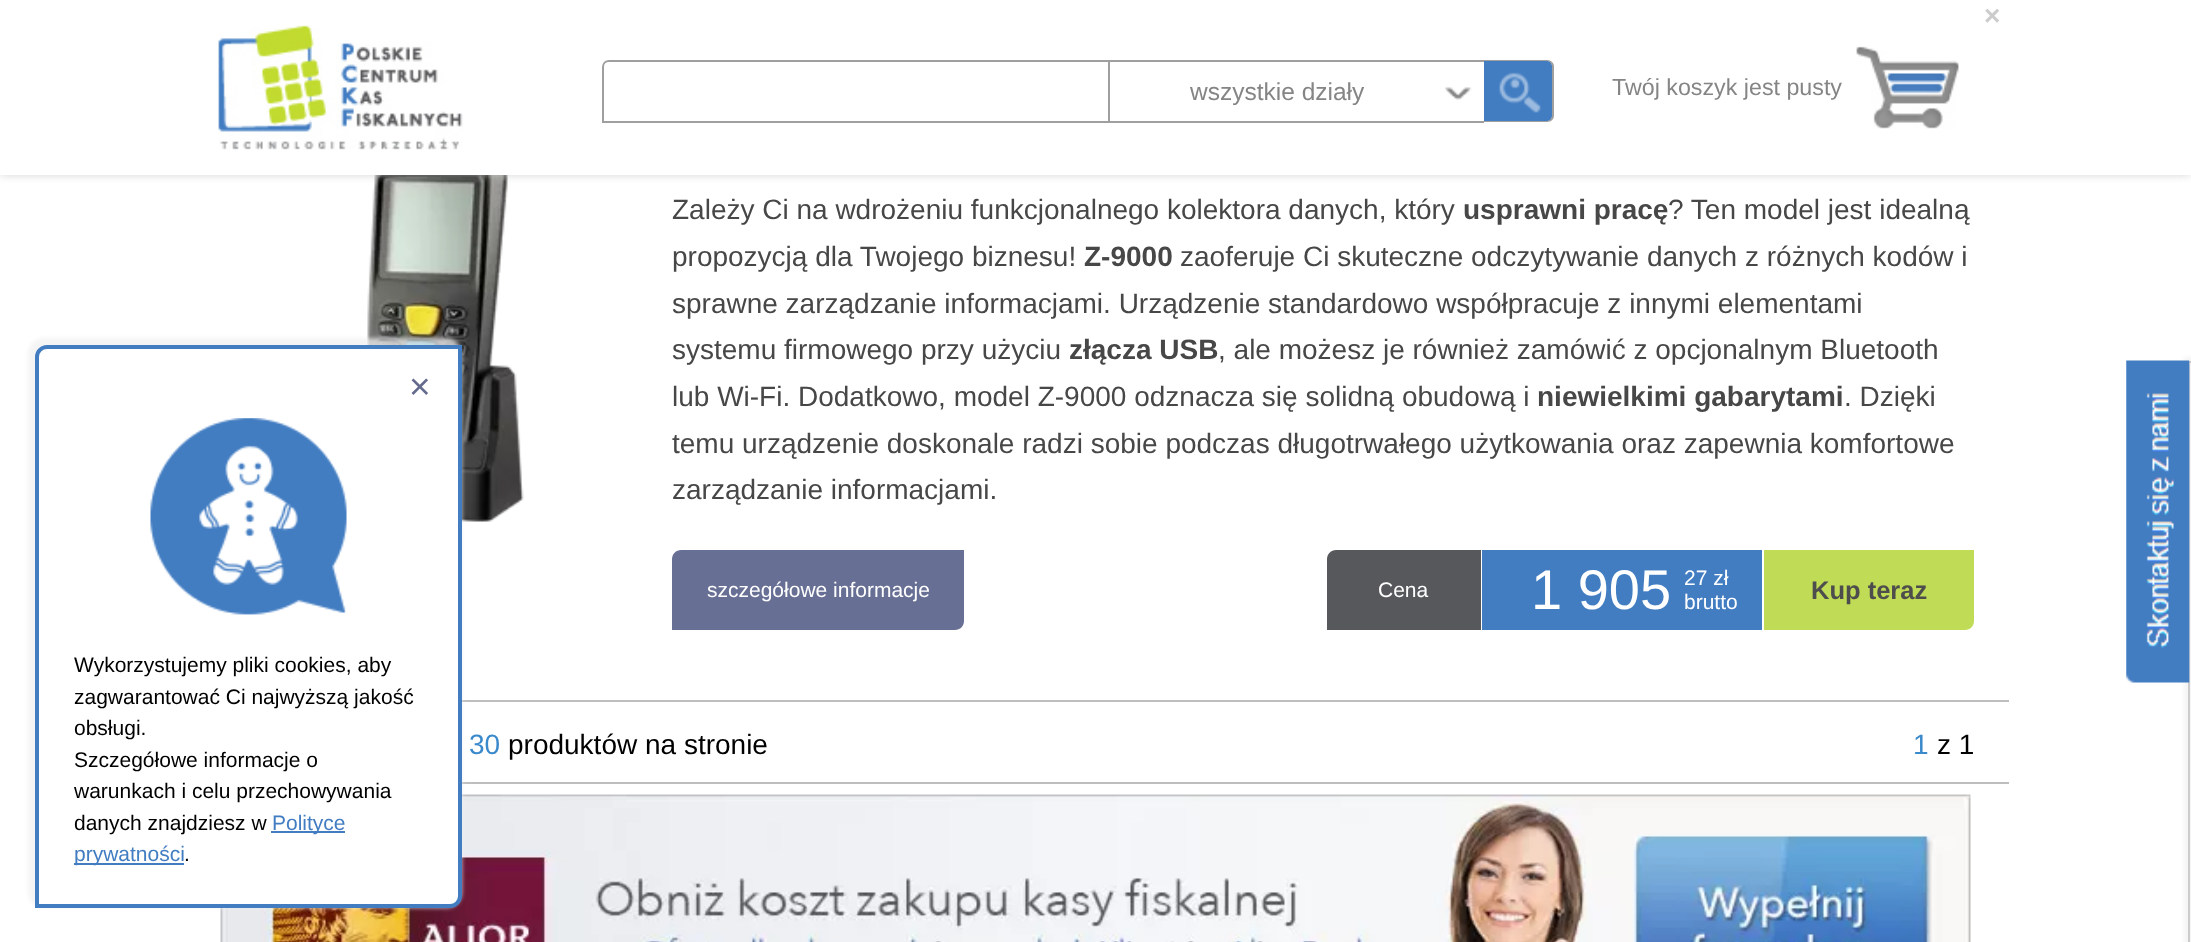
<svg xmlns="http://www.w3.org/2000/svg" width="2191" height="942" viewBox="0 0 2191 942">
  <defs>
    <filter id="blur1" x="-50%" y="-200%" width="200%" height="500%"><feGaussianBlur stdDeviation="4.5"/></filter>
    <filter id="blur2" x="-50%" y="-200%" width="200%" height="500%"><feGaussianBlur stdDeviation="2"/></filter>
  </defs>
  <rect width="100%" height="100%" fill="#ffffff"/>
  <image x="367" y="175" width="157" height="347" href="img6.png"/>
  <rect x="0" y="0" width="2191" height="175" fill="#c8c8c8" fill-opacity="0.75" filter="url(#blur1)"/>
  <rect x="0" y="0" width="2191" height="175" fill="#ffffff"/>
  <text x="1984" y="25" font-family="Liberation Sans" font-size="28" font-weight="bold" fill="#cccccc">×</text>
  <image x="218" y="25" width="245" height="125" href="img1.png"/>
  <path d="M609 61H1109V122H603V67C603 63.5 605.5 61 609 61Z" fill="none" stroke="#9f9f9f" stroke-width="2"/>
  <image x="1445" y="87" width="27" height="13" href="img2.png"/>
  <rect x="1110" y="60" width="374" height="2" fill="#9f9f9f"/>
  <rect x="1110" y="121" width="374" height="2" fill="#9f9f9f"/>
  <text x="1190" y="100" font-family="Liberation Sans" font-size="24.5" fill="#858585">wszystkie działy</text>
  <path d="M1484 61H1547C1550 61 1552 63 1552 66V116C1552 119 1550 121 1547 121H1484Z" fill="#427dc2"/>
  <image x="1499" y="72" width="42" height="41" href="img3.png"/>
  <path d="M1484 60H1547C1551 60 1554 63 1554 66V116C1554 119 1551 122 1547 122H1484ZM1484 61H1547C1550 61 1552 64 1552 66V116C1552 118 1550 121 1547 121H1484Z" fill="#9f9f9f" fill-rule="evenodd"/>
  <image x="1856" y="46" width="103" height="83" href="img4.png"/>
  <text x="1612" y="95" font-family="Liberation Sans" font-size="23.25" fill="#858585">Twój koszyk jest pusty</text>
  <rect x="462" y="700" width="1547" height="2" fill="#bebebe"/>
  <rect x="462" y="782" width="1547" height="2" fill="#bebebe"/>
  <image x="220" y="794" width="1751" height="148" href="img7.png"/>
  <rect x="28" y="338" width="434" height="570" rx="16" fill="#f0f0f0" fill-opacity="0.75" filter="url(#blur2)"/>
  <path d="M47 347H460V896C460 901.5 455.5 906 450 906H37V357C37 351.5 41.5 347 47 347Z" fill="#ffffff" stroke="#427dc2" stroke-width="4"/>
  <image x="150" y="418" width="197" height="197" href="img5.png"/>
  <text x="409" y="399" font-family="Liberation Sans" font-size="37" fill="#656b8d">×</text>
  <text x="74" y="672" font-family="Liberation Sans" font-size="21" fill="#000000">Wykorzystujemy pliki cookies, aby</text>
  <text x="74" y="704" font-family="Liberation Sans" font-size="21" fill="#000000">zagwarantować Ci najwyższą jakość</text>
  <text x="74" y="735" font-family="Liberation Sans" font-size="21" fill="#000000">obsługi.</text>
  <text x="74" y="767" font-family="Liberation Sans" font-size="21" fill="#000000">Szczegółowe informacje o</text>
  <text x="74" y="798" font-family="Liberation Sans" font-size="21" fill="#000000">warunkach i celu przechowywania</text>
  <text x="74" y="830" font-family="Liberation Sans" font-size="21" fill="#000000">danych znajdziesz w</text>
  <rect x="271" y="831" width="74" height="2" fill="#427dc2"/>
  <text x="272" y="830" font-family="Liberation Sans" font-size="21" fill="#427dc2">Polityce</text>
  <rect x="74" y="863" width="110" height="2" fill="#427dc2"/>
  <text x="74" y="861" font-family="Liberation Sans" font-size="21" fill="#427dc2">prywatności</text>
  <text x="184" y="861" font-family="Liberation Sans" font-size="21" fill="#000000">.</text>
  <text x="672" y="219" font-family="Liberation Sans" font-size="28" fill="#474747">Zależy Ci na wdrożeniu funkcjonalnego kolektora danych, który</text>
  <text x="1463" y="219" font-family="Liberation Sans" font-size="28" font-weight="bold" fill="#474747">usprawni pracę</text>
  <text x="1668" y="219" font-family="Liberation Sans" font-size="28" fill="#474747">? Ten model jest idealną</text>
  <text x="672" y="266" font-family="Liberation Sans" font-size="28" fill="#474747">propozycją dla Twojego biznesu!</text>
  <text x="1084" y="266" font-family="Liberation Sans" font-size="28" font-weight="bold" fill="#474747">Z-9000</text>
  <text x="1180" y="266" font-family="Liberation Sans" font-size="28" fill="#474747">zaoferuje Ci skuteczne odczytywanie danych z różnych kodów i</text>
  <text x="672" y="313" font-family="Liberation Sans" font-size="28" fill="#474747">sprawne zarządzanie informacjami. Urządzenie standardowo współpracuje z innymi elementami</text>
  <text x="672" y="359" font-family="Liberation Sans" font-size="28" fill="#474747">systemu firmowego przy użyciu</text>
  <text x="1069" y="359" font-family="Liberation Sans" font-size="28" font-weight="bold" fill="#474747">złącza USB</text>
  <text x="1218" y="359" font-family="Liberation Sans" font-size="28" fill="#474747">, ale możesz je również zamówić z opcjonalnym Bluetooth</text>
  <text x="672" y="406" font-family="Liberation Sans" font-size="28" fill="#474747">lub Wi-Fi. Dodatkowo, model Z-9000 odznacza się solidną obudową i</text>
  <text x="1537" y="406" font-family="Liberation Sans" font-size="28" font-weight="bold" fill="#474747">niewielkimi gabarytami</text>
  <text x="1844" y="406" font-family="Liberation Sans" font-size="28" fill="#474747">. Dzięki</text>
  <text x="672" y="453" font-family="Liberation Sans" font-size="28" fill="#474747">temu urządzenie doskonale radzi sobie podczas długotrwałego użytkowania oraz zapewnia komfortowe</text>
  <text x="672" y="499" font-family="Liberation Sans" font-size="28" fill="#474747">zarządzanie informacjami.</text>
  <path d="M681 550H964V621C964 626 960 630 955 630H672V559C672 554 676 550 681 550Z" fill="#676f94"/>
  <text x="707" y="597" font-family="Liberation Sans" font-size="21" fill="#ffffff">szczegółowe informacje</text>
  <path d="M1336 550H1481V630H1327V559C1327 554 1331 550 1336 550Z" fill="#57585c"/>
  <text x="1378" y="597" font-family="Liberation Sans" font-size="21" fill="#ffffff">Cena</text>
  <rect x="1482" y="550" width="280" height="80" fill="#427dc2"/>
  <text x="1531" y="609" font-family="Liberation Sans" font-size="56" fill="#ffffff">1 905</text>
  <text x="1684" y="585" font-family="Liberation Sans" font-size="21" fill="#ffffff">27 zł</text>
  <text x="1684" y="609" font-family="Liberation Sans" font-size="21" fill="#ffffff">brutto</text>
  <path d="M1764 550H1974V621C1974 626 1970 630 1965 630H1764Z" fill="#c0db55"/>
  <text x="1811" y="599" font-family="Liberation Sans" font-size="25.5" font-weight="bold" fill="#4d4d4d">Kup teraz</text>
  <text x="469" y="754" font-family="Liberation Sans" font-size="28" fill="#3a89cb">30</text>
  <text x="508" y="754" font-family="Liberation Sans" font-size="28" fill="#000000">produktów na stronie</text>
  <text x="1913" y="754" font-family="Liberation Sans" font-size="28" fill="#3a89cb">1</text>
  <text x="1937" y="754" font-family="Liberation Sans" font-size="28" fill="#000000">z 1</text>
  <rect x="2184" y="357" width="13" height="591" fill="#f0f0f0" fill-opacity="0.75" filter="url(#blur2)"/>
  <rect x="2189" y="362" width="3" height="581" fill="none" stroke="#cccccc" stroke-width="2"/>
  <image x="2126" y="360" width="64" height="323" href="img8.png"/>
</svg>
